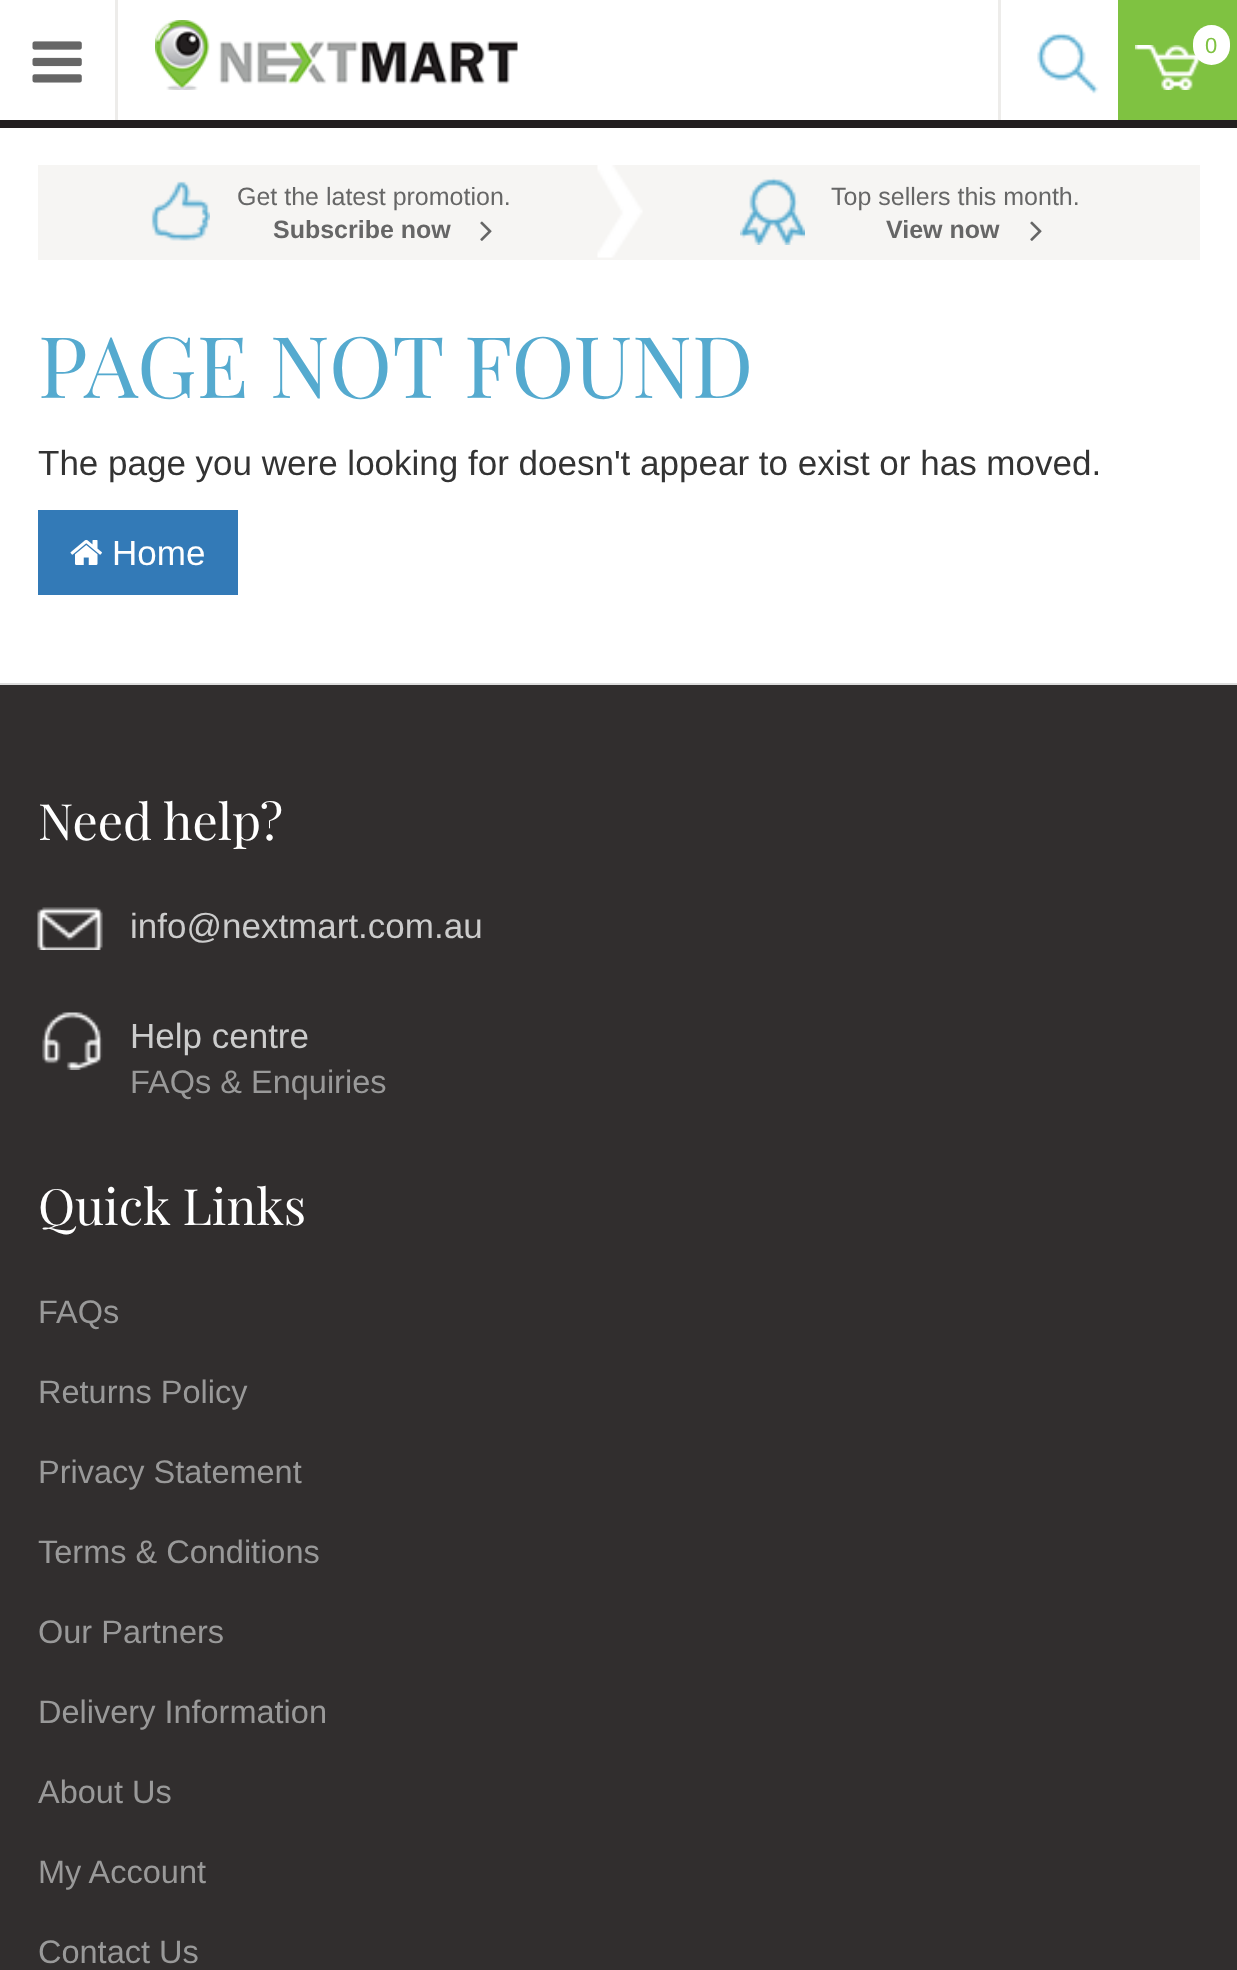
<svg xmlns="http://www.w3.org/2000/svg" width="1237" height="1970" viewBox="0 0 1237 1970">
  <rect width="100%" height="100%" fill="#ffffff"/>
  <rect x="0" y="120" width="1237" height="8" fill="#231f20"/>
  <rect x="115" y="0" width="3" height="120" fill="#edecea"/>
  <image x="32" y="41" width="50" height="42" href="img1.png"/>
  <image x="155" y="20" width="363" height="70" href="img2.png"/>
  <image x="1037" y="32" width="62" height="62" href="img3.png"/>
  <rect x="998" y="0" width="3" height="120" fill="#edecea"/>
  <rect x="1118" y="0" width="119" height="120" fill="#7fc241"/>
  <image x="1135" y="45" width="65" height="45" href="img4.png"/>
  <rect x="1193" y="25" width="37" height="40" rx="18.5" fill="#ffffff"/>
  <text x="1205" y="53" font-family="Liberation Sans" font-size="22" fill="#7fc241">0</text>
  <rect x="38" y="165" width="1162" height="95" fill="#f6f5f3"/>
  <image x="151" y="181" width="59" height="60" href="img5.png"/>
  <text x="237" y="205" font-family="Liberation Sans" font-size="25" fill="#666666">Get the latest promotion.</text>
  <text x="273" y="238" font-family="Liberation Sans" font-size="25" font-weight="bold" fill="#666666">Subscribe now</text>
  <image x="480" y="221" width="12" height="20" href="img6.png"/>
  <image x="597" y="165" width="46" height="93" href="img7.png"/>
  <image x="740" y="177" width="65" height="68" href="img8.png"/>
  <text x="831" y="205" font-family="Liberation Sans" font-size="25" fill="#666666">Top sellers this month.</text>
  <text x="886" y="238" font-family="Liberation Sans" font-size="25" font-weight="bold" fill="#666666">View now</text>
  <image x="1030" y="221" width="12" height="20" href="img6.png"/>
  <text x="38" y="398" font-family="Playfair Display" font-size="85" fill="#55aacf">PAGE NOT FOUND</text>
  <text x="38" y="475" font-family="Liberation Sans" font-size="35" fill="#333333">The page you were looking for doesn't appear to exist or has moved.</text>
  <rect x="38" y="510" width="200" height="85" fill="#337ab7"/>
  <image x="70" y="539" width="32" height="26" href="img9.png"/>
  <text x="112" y="565" font-family="Liberation Sans" font-size="35" fill="#ffffff">Home</text>
  <rect x="0" y="683" width="1237" height="2" fill="#dddddd"/>
  <rect x="0" y="685" width="1237" height="1285" fill="#312e2e"/>
  <text x="38" y="840" font-family="Playfair Display" font-size="50" fill="#ffffff">Need help?</text>
  <image x="37" y="907" width="66" height="43" href="img10.png"/>
  <text x="130" y="938" font-family="Liberation Sans" font-size="35" fill="#cccccc">info@nextmart.com.au</text>
  <image x="42" y="1012" width="61" height="58" href="img11.png"/>
  <text x="130" y="1048" font-family="Liberation Sans" font-size="35" fill="#cccccc">Help centre</text>
  <text x="130" y="1093" font-family="Liberation Sans" font-size="32.5" fill="#999999">FAQs &amp; Enquiries</text>
  <text x="38" y="1225" font-family="Playfair Display" font-size="50" fill="#ffffff">Quick Links</text>
  <text x="38" y="1323" font-family="Liberation Sans" font-size="32.5" fill="#999999">FAQs</text>
  <text x="38" y="1403" font-family="Liberation Sans" font-size="32.5" fill="#999999">Returns Policy</text>
  <text x="38" y="1483" font-family="Liberation Sans" font-size="32.5" fill="#999999">Privacy Statement</text>
  <text x="38" y="1563" font-family="Liberation Sans" font-size="32.5" fill="#999999">Terms &amp; Conditions</text>
  <text x="38" y="1643" font-family="Liberation Sans" font-size="32.5" fill="#999999">Our Partners</text>
  <text x="38" y="1723" font-family="Liberation Sans" font-size="32.5" fill="#999999">Delivery Information</text>
  <text x="38" y="1803" font-family="Liberation Sans" font-size="32.5" fill="#999999">About Us</text>
  <text x="38" y="1883" font-family="Liberation Sans" font-size="32.5" fill="#999999">My Account</text>
  <text x="38" y="1963" font-family="Liberation Sans" font-size="32.5" fill="#999999">Contact Us</text>
</svg>
